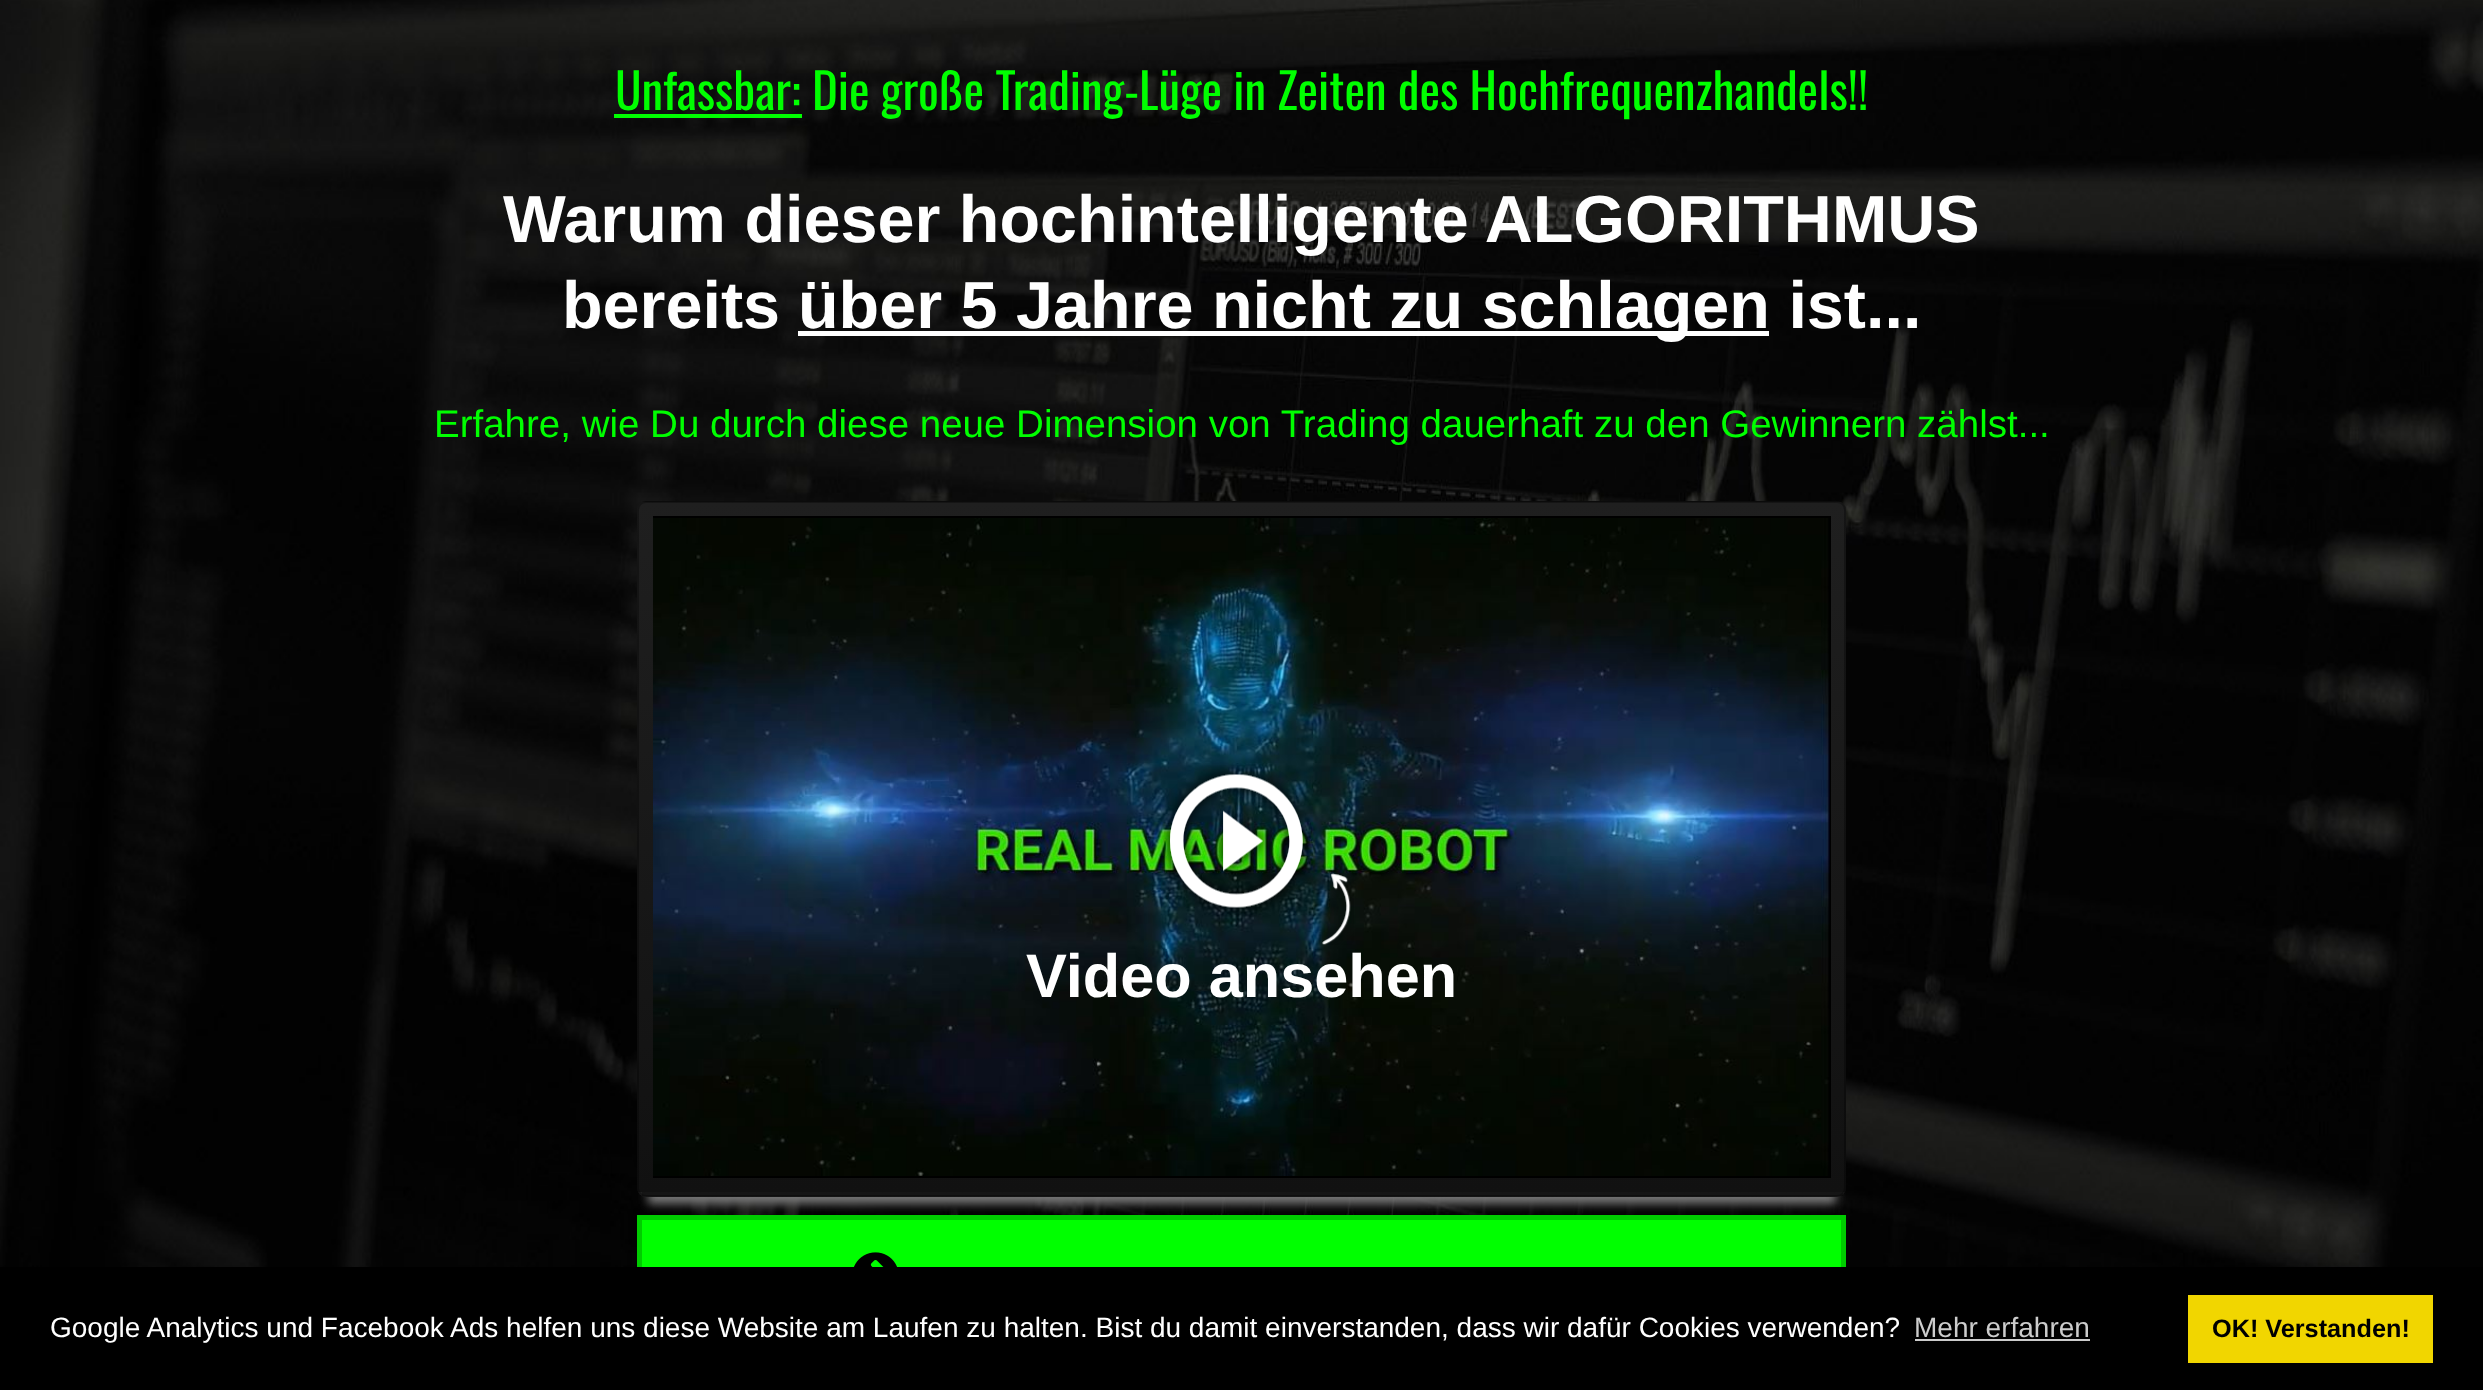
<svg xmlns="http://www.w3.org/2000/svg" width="2483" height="1390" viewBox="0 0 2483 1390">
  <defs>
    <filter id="blur1" x="-50%" y="-200%" width="200%" height="500%"><feGaussianBlur stdDeviation="5"/></filter>
    <clipPath id="clip1"><rect x="637" y="501" width="1209" height="696" rx="9"/></clipPath>
    <linearGradient id="g1" gradientUnits="userSpaceOnUse" x1="1242" y1="-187" x2="1242" y2="502"><stop offset="0" stop-color="#1f1f1f"/><stop offset="1" stop-color="#111111"/></linearGradient>
    <linearGradient id="g2" gradientUnits="userSpaceOnUse" x1="1242" y1="502" x2="1242" y2="1192"><stop offset="0" stop-color="#1f1f1f"/><stop offset="1" stop-color="#111111"/></linearGradient>
    <linearGradient id="g3" gradientUnits="userSpaceOnUse" x1="1242" y1="1192" x2="1242" y2="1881"><stop offset="0" stop-color="#1f1f1f"/><stop offset="1" stop-color="#111111"/></linearGradient>
  </defs>
  <rect width="100%" height="100%" fill="#ffffff"/>
  <image x="0" y="0" width="2483" height="1267" href="img1.png"/>
  <rect x="614" y="114" width="188" height="4" fill="#00ff00"/>
  <text x="615" y="110" font-family="Oswald" font-size="49" fill="#00ff00">Unfassbar: Die große Trading-Lüge in Zeiten des Hochfrequenzhandels!!</text>
  <text x="503" y="242" font-family="Liberation Sans" font-size="66.5" font-weight="bold" fill="#ffffff">Warum dieser hochintelligente ALGORITHMUS</text>
  <text x="562" y="328" font-family="Liberation Sans" font-size="66.5" font-weight="bold" fill="#ffffff">bereits</text>
  <rect x="798" y="331" width="971" height="5" fill="#ffffff"/>
  <text x="798" y="328" font-family="Liberation Sans" font-size="66.5" font-weight="bold" fill="#ffffff">über 5 Jahre nicht zu schlagen ist...</text>
  <text x="434" y="437" font-family="Liberation Sans" font-size="38.5" fill="#00ff00">Erfahre, wie Du durch diese neue Dimension von Trading dauerhaft zu den Gewinnern zählst...</text>
  <rect x="648" y="529" width="1188" height="675" fill="#777777" filter="url(#blur1)"/>
  <g clip-path="url(#clip1)">
    <rect x="637" y="501" width="1209" height="1" fill="url(#g1)"/>
    <rect x="637" y="502" width="1209" height="690" fill="url(#g2)"/>
    <rect x="637" y="1192" width="1209" height="5" fill="url(#g3)"/>
  </g>
  <rect x="638" y="502" width="1207" height="694" rx="8" fill="none" stroke="#000000" stroke-opacity="0.3" stroke-width="2"/>
  <rect x="642" y="1192" width="1201" height="4" fill="#000000" fill-opacity="0.3"/>
  <rect x="653" y="516" width="1178" height="662" fill="#000000"/>
  <image x="653" y="518" width="1177" height="658" href="img2.png"/>
  <image x="1158" y="765" width="154" height="152" href="img3.png"/>
  <image x="1322" y="866" width="32" height="79" href="img4.png"/>
  <text x="1026" y="997" font-family="Liberation Sans" font-size="61.25" font-weight="bold" fill="#ffffff">Video ansehen</text>
  <rect x="642" y="1220" width="1199" height="47" fill="#00ff00"/>
  <rect x="639.5" y="1217.5" width="1204" height="147" fill="none" stroke="#00cc00" stroke-width="5"/>
  <image x="854" y="1252" width="43" height="15" href="img5.png"/>
  <rect x="0" y="1267" width="2483" height="123" fill="#000000"/>
  <text x="50" y="1337" font-family="Liberation Sans" font-size="28" fill="#ffffff">Google Analytics und Facebook Ads helfen uns diese Website am Laufen zu halten. Bist du damit einverstanden, dass wir dafür Cookies verwenden?</text>
  <text x="1914" y="1337" font-family="Liberation Sans" font-size="28" fill="#cccccc">Mehr erfahren</text>
  <rect x="1915" y="1339" width="175" height="2" fill="#cccccc"/>
  <rect x="2188" y="1295" width="245" height="68" fill="#f1d600"/>
  <text x="2212" y="1337" font-family="Liberation Sans" font-size="25.25" font-weight="bold" fill="#000000">OK! Verstanden!</text>
</svg>
